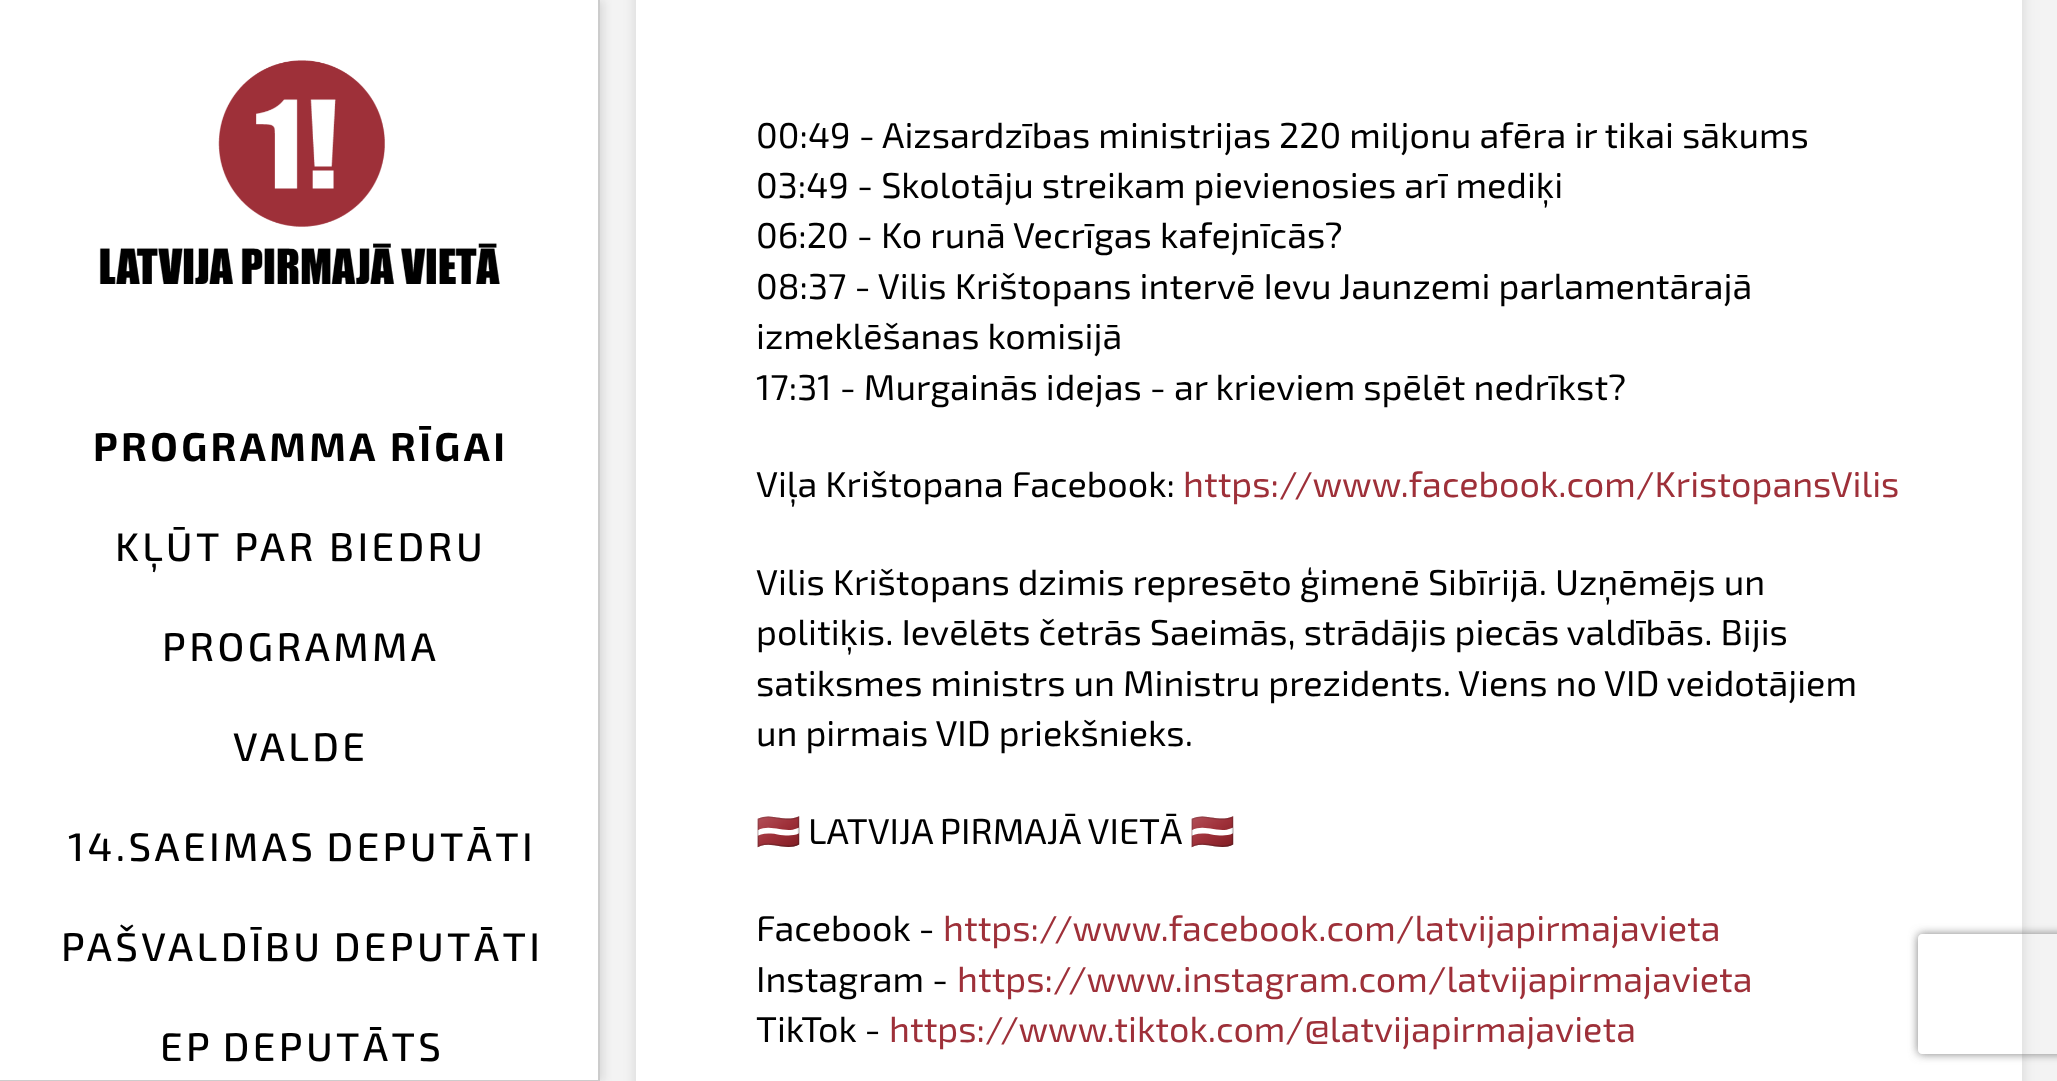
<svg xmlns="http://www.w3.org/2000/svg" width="2057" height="1081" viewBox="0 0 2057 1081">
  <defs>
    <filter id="blur1" x="-50%" y="-200%" width="200%" height="500%"><feGaussianBlur stdDeviation="4"/></filter>
    <filter id="blur2" x="-50%" y="-200%" width="200%" height="500%"><feGaussianBlur stdDeviation="6.5"/></filter>
    <clipPath id="clip1"><path d="M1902 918H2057V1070H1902ZM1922 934H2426C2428 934 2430 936 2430 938V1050C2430 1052 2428 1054 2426 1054H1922C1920 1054 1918 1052 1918 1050V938C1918 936 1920 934 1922 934Z" clip-rule="evenodd"/></clipPath>
    <filter id="blur3" x="-50%" y="-200%" width="200%" height="500%"><feGaussianBlur stdDeviation="5"/></filter>
  </defs>
  <rect width="100%" height="100%" fill="#f3f3f3"/>
  <rect x="4" y="0" width="600" height="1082" fill="#000000" fill-opacity="0.1" filter="url(#blur1)"/>
  <rect x="0" y="0" width="598" height="1080" fill="#ffffff"/>
  <rect x="598" y="0" width="2" height="1081" fill="#cccccc"/>
  <rect x="0" y="1080" width="600" height="1" fill="#cccccc"/>
  <image x="99" y="60" width="401" height="224" href="img1.png"/>
  <text x="93" y="461" font-family="'Exo 2'" font-size="40" font-weight="bold" letter-spacing="3.4" fill="#000000">PROGRAMMA RĪGAI</text>
  <text x="115" y="561" font-family="'Exo 2'" font-size="40" font-weight="500" letter-spacing="3.4" fill="#000000">KĻŪT PAR BIEDRU</text>
  <text x="162" y="661" font-family="'Exo 2'" font-size="40" font-weight="500" letter-spacing="3.4" fill="#000000">PROGRAMMA</text>
  <text x="233" y="761" font-family="'Exo 2'" font-size="40" font-weight="500" letter-spacing="3.4" fill="#000000">VALDE</text>
  <text x="68" y="861" word-spacing="-2" font-family="'Exo 2'" font-size="40" font-weight="500" letter-spacing="3.4" fill="#000000">14.SAEIMAS DEPUTĀTI</text>
  <text x="61" y="961" word-spacing="-2" font-family="'Exo 2'" font-size="40" font-weight="500" letter-spacing="3.4" fill="#000000">PAŠVALDĪBU DEPUTĀTI</text>
  <text x="160" y="1061" word-spacing="-2" font-family="'Exo 2'" font-size="40" font-weight="500" letter-spacing="3.4" fill="#000000">EP DEPUTĀTS</text>
  <rect x="636" y="-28" width="1386" height="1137" rx="8" fill="#000000" fill-opacity="0.13" filter="url(#blur2)"/>
  <rect x="636" y="0" width="1386" height="1081" fill="#ffffff"/>
  <text x="756" y="148" font-family="'Exo 2'" font-size="36" fill="#000000">00:49 - Aizsardzības ministrijas 220 miljonu afēra ir tikai sākums</text>
  <text x="756" y="198" font-family="'Exo 2'" font-size="36" fill="#000000">03:49 - Skolotāju streikam pievienosies arī mediķi</text>
  <text x="756" y="248" font-family="'Exo 2'" font-size="36" fill="#000000">06:20 - Ko runā Vecrīgas kafejnīcās?</text>
  <text x="756" y="299" font-family="'Exo 2'" font-size="36" fill="#000000">08:37 - Vilis Krištopans intervē Ievu Jaunzemi parlamentārajā</text>
  <text x="756" y="349" font-family="'Exo 2'" font-size="36" fill="#000000">izmeklēšanas komisijā</text>
  <text x="756" y="400" font-family="'Exo 2'" font-size="36" fill="#000000">17:31 - Murgainās idejas - ar krieviem spēlēt nedrīkst?</text>
  <text x="756" y="497" font-family="'Exo 2'" font-size="36" fill="#000000">Viļa Krištopana Facebook:</text>
  <text x="1183" y="497" font-family="'Exo 2'" font-size="36" fill="#9e3039">https://www.facebook.com/KristopansVilis</text>
  <text x="756" y="595" font-family="'Exo 2'" font-size="36" fill="#000000">Vilis Krištopans dzimis represēto ģimenē Sibīrijā. Uzņēmējs un</text>
  <text x="756" y="645" font-family="'Exo 2'" font-size="36" fill="#000000">politiķis. Ievēlēts četrās Saeimās, strādājis piecās valdībās. Bijis</text>
  <text x="756" y="696" font-family="'Exo 2'" font-size="36" fill="#000000">satiksmes ministrs un Ministru prezidents. Viens no VID veidotājiem</text>
  <text x="756" y="746" font-family="'Exo 2'" font-size="36" fill="#000000">un pirmais VID priekšnieks.</text>
  <text x="756" y="844" font-family="Noto Color Emoji" font-size="36" fill="#000000">🇱🇻</text>
  <text x="808" y="844" word-spacing="-1" font-family="'Exo 2'" font-size="36" fill="#000000">LATVIJA PIRMAJĀ VIETĀ</text>
  <text x="1190" y="844" font-family="Noto Color Emoji" font-size="36" fill="#000000">🇱🇻</text>
  <text x="756" y="941" font-family="'Exo 2'" font-size="36" fill="#000000">Facebook -</text>
  <text x="943" y="941" font-family="'Exo 2'" font-size="36" fill="#9e3039">https://www.facebook.com/latvijapirmajavieta</text>
  <text x="756" y="992" font-family="'Exo 2'" font-size="36" fill="#000000">Instagram -</text>
  <text x="957" y="992" font-family="'Exo 2'" font-size="36" fill="#9e3039">https://www.instagram.com/latvijapirmajavieta</text>
  <text x="756" y="1042" font-family="'Exo 2'" font-size="36" fill="#000000">TikTok -</text>
  <text x="889" y="1042" font-family="'Exo 2'" font-size="36" fill="#9e3039">https://www.tiktok.com/@latvijapirmajavieta</text>
  <g clip-path="url(#clip1)">
    <rect x="1918" y="934" width="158" height="120" rx="4" fill="#808080" filter="url(#blur3)"/>
  </g>
</svg>
